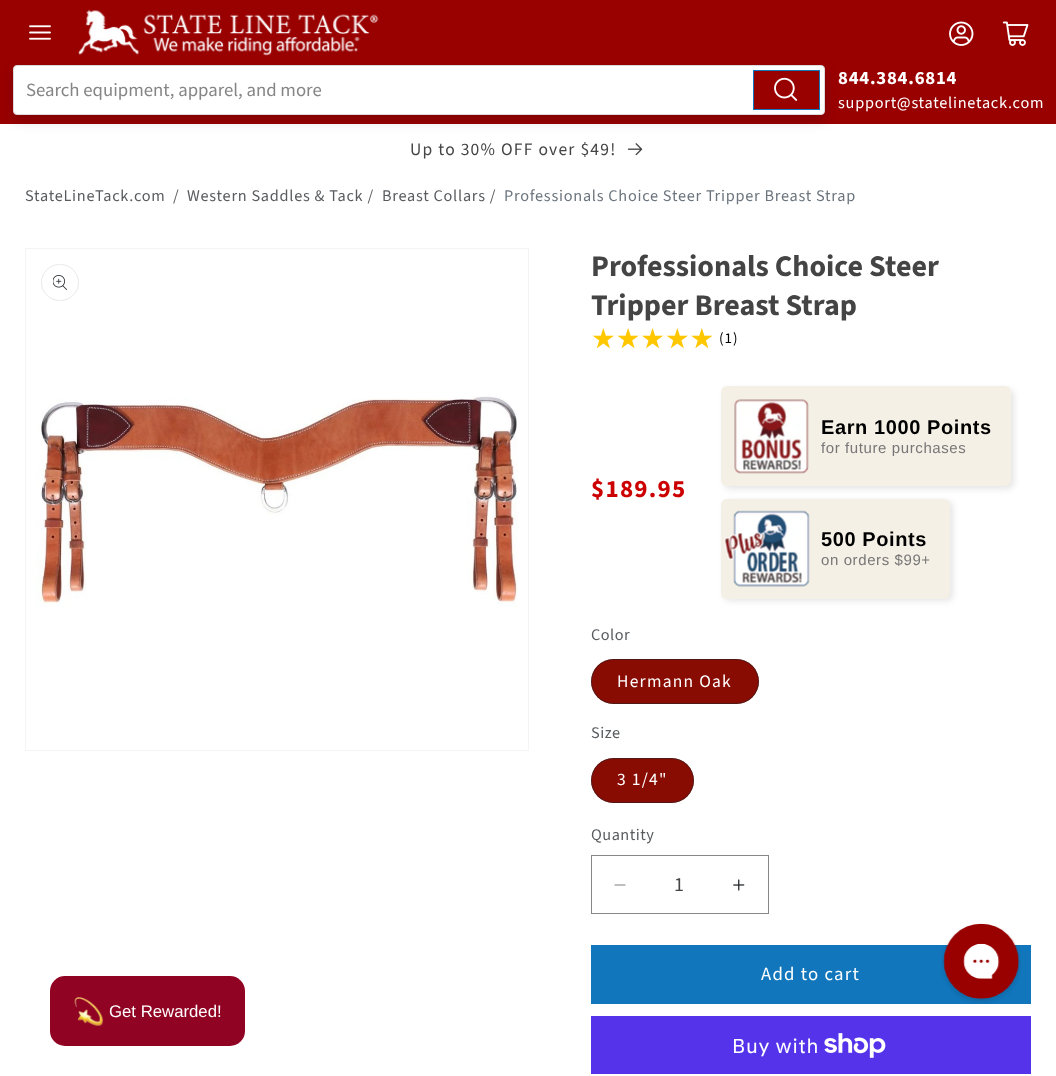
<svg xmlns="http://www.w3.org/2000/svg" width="1056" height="1076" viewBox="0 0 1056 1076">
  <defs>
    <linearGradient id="g1" gradientUnits="userSpaceOnUse" x1="591" y1="339" x2="714" y2="339"><stop offset="1" stop-color="#ffc700"/><stop offset="1" stop-color="#dededf"/></linearGradient>
    <filter id="blur1" x="-50%" y="-200%" width="200%" height="500%"><feGaussianBlur stdDeviation="6"/></filter>
    <filter id="blur2" x="-50%" y="-200%" width="200%" height="500%"><feGaussianBlur stdDeviation="3"/></filter>
  </defs>
  <rect width="100%" height="100%" fill="#ffffff"/>
  <rect x="0" y="0" width="1056" height="124" fill="#990000"/>
  <image x="29" y="25" width="22" height="15" href="img1.png"/>
  <image x="78" y="9" width="301" height="47" href="img2.png"/>
  <image x="949" y="21" width="25" height="25" href="img3.png"/>
  <image x="1002" y="21" width="27" height="25" href="img4.png"/>
  <rect x="13" y="71" width="812" height="50" rx="4" fill="#000000" fill-opacity="0.15" filter="url(#blur1)"/>
  <rect x="13.5" y="65.5" width="811" height="49" rx="3.5" fill="#ffffff" stroke="#dadada"/>
  <text x="26" y="96" font-family="Source Sans Pro" font-size="18.75" fill="#858585">Search equipment, apparel, and more</text>
  <rect x="754" y="71" width="65" height="38" fill="#990000"/>
  <image x="774" y="77" width="24" height="24" href="img5.png"/>
  <rect x="753.5" y="70.5" width="66" height="39" fill="none" stroke="#1176bc"/>
  <text x="838" y="84" font-family="Source Sans Pro" font-size="18.75" font-weight="bold" letter-spacing="0.75" fill="#ffffff">844.384.6814</text>
  <text x="838" y="108" font-family="Source Sans Pro" font-size="16.25" letter-spacing="0.75" fill="#ffffff">support@statelinetack.com</text>
  <text x="410" y="155" font-family="Source Sans Pro" font-size="17.5" letter-spacing="1.25" fill="#444444">Up to 30% OFF over $49!</text>
  <image x="628" y="143" width="15" height="13" href="img6.png"/>
  <text x="25" y="201" font-family="Source Sans Pro" font-size="16.25" letter-spacing="0.75" fill="#595c5f">StateLineTack.com</text>
  <text x="173" y="201" font-family="Source Sans Pro" font-size="16.25" letter-spacing="0.75" fill="#595c5f">/</text>
  <text x="187" y="201" font-family="Source Sans Pro" font-size="16.25" letter-spacing="0.75" fill="#595c5f">Western Saddles &amp; Tack /</text>
  <text x="382" y="201" font-family="Source Sans Pro" font-size="16.25" letter-spacing="0.75" fill="#595c5f">Breast Collars /</text>
  <text x="504" y="201" font-family="Source Sans Pro" font-size="16.25" letter-spacing="0.75" fill="#6c757d">Professionals Choice Steer Tripper Breast Strap</text>
  <rect x="25.5" y="248.5" width="503" height="502" fill="none" stroke="#f4f4f4"/>
  <rect x="41.5" y="264.5" width="37" height="36" rx="18" fill="none" stroke="#e9e9ea"/>
  <image x="53" y="275" width="14" height="15" href="img7.png"/>
  <image x="36" y="395" width="482" height="212" href="img8.png"/>
  <text x="591" y="276" font-family="Source Sans Pro" font-size="30" font-weight="bold" fill="#444444">Professionals Choice Steer</text>
  <text x="591" y="315" font-family="Source Sans Pro" font-size="30" font-weight="bold" fill="#444444">Tripper Breast Strap</text>
  <text x="591" y="348" font-family="DejaVu Sans" font-size="27.5" fill="url(#g1)">★★★★★</text>
  <text x="719" y="343" font-family="Source Sans Pro" font-size="15" letter-spacing="1" fill="#000000">(1)</text>
  <text x="591" y="497" font-family="Source Sans Pro" font-size="25" font-weight="bold" letter-spacing="1.25" fill="#cc0000">$189.95</text>
  <rect x="724" y="389" width="290" height="100" rx="6" fill="#000000" fill-opacity="0.1" filter="url(#blur2)"/>
  <rect x="721" y="386" width="290" height="100" rx="6" fill="#f5f0e6"/>
  <image x="734" y="399" width="75" height="75" href="img9.png"/>
  <text x="821" y="434" font-family="Liberation Sans" font-size="20" font-weight="bold" letter-spacing="0.6" fill="#000000">Earn 1000 Points</text>
  <text x="821" y="453" font-family="Liberation Sans" font-size="15" letter-spacing="0.6" fill="#777777">for future purchases</text>
  <rect x="724" y="501" width="229" height="100" rx="6" fill="#000000" fill-opacity="0.1" filter="url(#blur2)"/>
  <rect x="721" y="499" width="229" height="100" rx="6" fill="#f5f0e6"/>
  <image x="724" y="510" width="86" height="77" href="img10.png"/>
  <text x="821" y="546" font-family="Liberation Sans" font-size="20" font-weight="bold" letter-spacing="0.6" fill="#000000">500 Points</text>
  <text x="821" y="565" font-family="Liberation Sans" font-size="15" letter-spacing="0.6" fill="#777777">on orders $99+</text>
  <text x="591" y="640" font-family="Source Sans Pro" font-size="16.25" letter-spacing="0.5" fill="#595c5f">Color</text>
  <rect x="591" y="659" width="168" height="45" rx="22.5" fill="#890c03"/>
  <rect x="591.5" y="659.5" width="167" height="44" rx="22" fill="none" stroke="#212529" stroke-opacity="0.55"/>
  <text x="617" y="687" font-family="Source Sans Pro" font-size="17.5" letter-spacing="1.25" fill="#ffffff">Hermann Oak</text>
  <text x="591" y="738" font-family="Source Sans Pro" font-size="16.25" letter-spacing="0.5" fill="#595c5f">Size</text>
  <rect x="591" y="758" width="103" height="45" rx="22.5" fill="#890c03"/>
  <rect x="591.5" y="758.5" width="102" height="44" rx="22" fill="none" stroke="#212529" stroke-opacity="0.55"/>
  <text x="617" y="785" font-family="Source Sans Pro" font-size="17.5" letter-spacing="1.25" fill="#ffffff">3 1/4"</text>
  <text x="591" y="840" font-family="Source Sans Pro" font-size="16.25" letter-spacing="0.5" fill="#595c5f">Quantity</text>
  <image x="614" y="884" width="12" height="2" href="img11.png"/>
  <image x="733" y="879" width="12" height="12" href="img12.png"/>
  <rect x="591.5" y="855.5" width="177" height="58" fill="none" stroke="#858789"/>
  <text x="674" y="891" font-family="Source Sans Pro" font-size="20" fill="#444444">1</text>
  <rect x="591" y="945" width="440" height="59" fill="#1176bc"/>
  <text x="761" y="980" font-family="Source Sans Pro" font-size="18.75" letter-spacing="1.25" fill="#ffffff">Add to cart</text>
  <rect x="591" y="1016" width="440" height="58" fill="#5433eb"/>
  <text x="732" y="1053" font-family="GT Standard" font-size="20" letter-spacing="0.75" fill="#ffffff">Buy with</text>
  <image x="824" y="1033" width="62" height="25" href="img13.png"/>
  <image x="941" y="923" width="80" height="81" href="img14.png"/>
  <rect x="50" y="976" width="195" height="70" rx="15" fill="#910323"/>
  <image x="74" y="997" width="30" height="29" href="img15.png"/>
  <text x="109" y="1017" font-family="Liberation Sans" font-size="16.75" fill="#ffffff">Get Rewarded!</text>
</svg>
